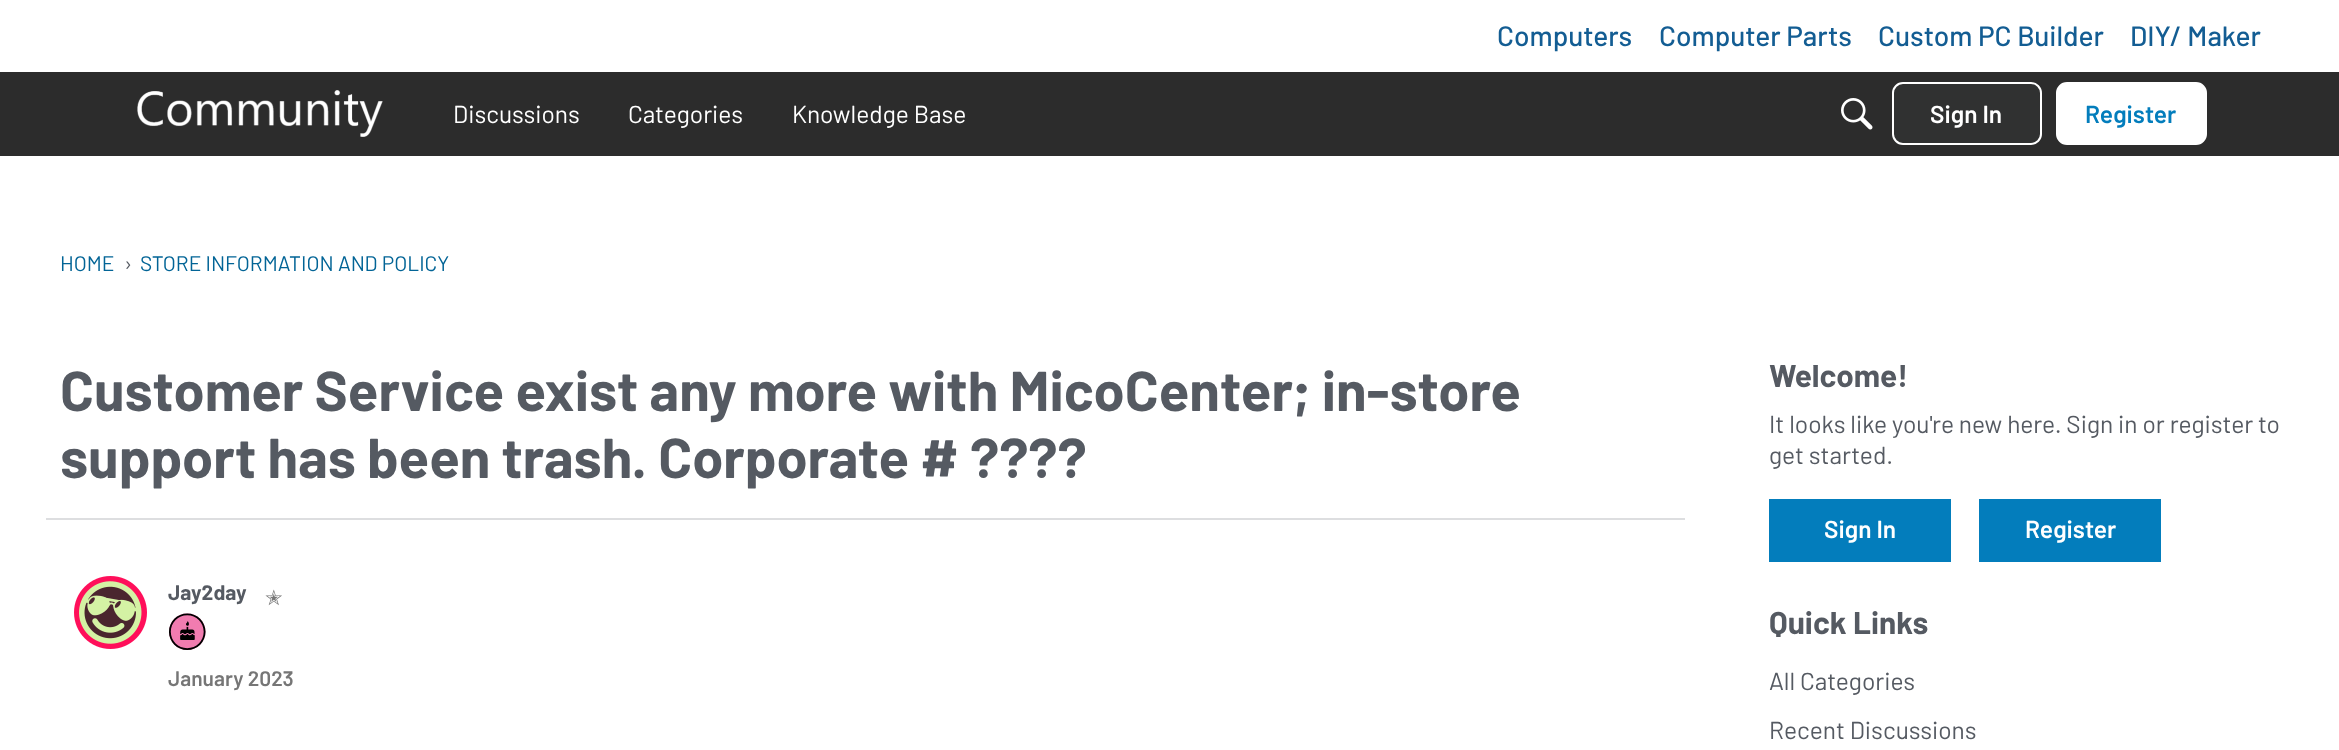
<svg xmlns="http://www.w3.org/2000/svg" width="2339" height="750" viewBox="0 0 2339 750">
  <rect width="100%" height="100%" fill="#ffffff"/>
  <text x="1497" y="46" font-family="Barlow" font-size="28" font-weight="500" fill="#135d93">Computers</text>
  <text x="1659" y="46" font-family="Barlow" font-size="28" font-weight="500" fill="#135d93">Computer Parts</text>
  <text x="1878" y="46" font-family="Barlow" font-size="28" font-weight="500" fill="#135d93">Custom PC Builder</text>
  <text x="2130" y="46" font-family="Barlow" font-size="28" font-weight="500" fill="#135d93">DIY/ Maker</text>
  <rect x="0" y="72" width="2339" height="84" fill="#2c2c2c"/>
  <image x="137" y="90" width="246" height="47" href="img1.png"/>
  <text x="453" y="123" font-family="Barlow" font-size="24.5" fill="#ffffff">Discussions</text>
  <text x="628" y="123" font-family="Barlow" font-size="24.5" fill="#ffffff">Categories</text>
  <text x="792" y="123" font-family="Barlow" font-size="24.5" fill="#ffffff">Knowledge Base</text>
  <image x="1841" y="98" width="32" height="32" href="img2.png"/>
  <rect x="1893" y="83" width="148" height="61" rx="10" fill="#303131" stroke="#ffffff" stroke-width="2"/>
  <text x="1930" y="123" font-family="Barlow" font-size="24.5" font-weight="600" fill="#ffffff">Sign In</text>
  <rect x="2057" y="83" width="149" height="61" rx="10" fill="#ffffff" stroke="#ffffff" stroke-width="2"/>
  <text x="2085" y="123" font-family="Barlow" font-size="24.5" font-weight="600" fill="#037dbc">Register</text>
  <text x="60" y="271" font-family="Barlow" font-size="21" fill="#026496">HOME</text>
  <text x="124" y="271" font-family="Barlow" font-size="21" fill="#555a62">›</text>
  <text x="140" y="271" font-family="Barlow" font-size="21" fill="#026496">STORE INFORMATION AND POLICY</text>
  <text x="60" y="411" font-family="Barlow" font-size="56" font-weight="bold" fill="#555a62">Customer Service exist any more with MicoCenter; in-store</text>
  <text x="60" y="478" font-family="Barlow" font-size="56" font-weight="bold" fill="#555a62">support has been trash. Corporate # ????</text>
  <rect x="46" y="518" width="1639" height="2" fill="#dddee0"/>
  <image x="74" y="576" width="73" height="73" href="img3.png"/>
  <text x="168" y="600" font-family="Barlow" font-size="21" font-weight="bold" fill="#555a62">Jay2day</text>
  <text x="265" y="605" font-family="DejaVu Sans" font-size="21" fill="#767676">✭</text>
  <image x="169" y="613" width="37" height="37" href="img4.png"/>
  <text x="168" y="686" font-family="Barlow" font-size="21" font-weight="600" fill="#767676">January 2023</text>
  <text x="1769" y="387" font-family="Barlow" font-size="31.5" font-weight="bold" fill="#555a62">Welcome!</text>
  <text x="1769" y="433" font-family="Barlow" font-size="24.5" fill="#555a62">It looks like you're new here. Sign in or register to</text>
  <text x="1769" y="464" font-family="Barlow" font-size="24.5" fill="#555a62">get started.</text>
  <rect x="1769" y="499" width="182" height="63" fill="#037dbc"/>
  <text x="1824" y="538" font-family="Barlow" font-size="24.5" font-weight="600" fill="#ffffff">Sign In</text>
  <rect x="1979" y="499" width="182" height="63" fill="#037dbc"/>
  <text x="2025" y="538" font-family="Barlow" font-size="24.5" font-weight="600" fill="#ffffff">Register</text>
  <text x="1769" y="634" font-family="Barlow" font-size="31.5" font-weight="bold" fill="#555a62">Quick Links</text>
  <text x="1769" y="690" font-family="Barlow" font-size="24.5" fill="#555a62">All Categories</text>
  <text x="1769" y="739" font-family="Barlow" font-size="24.5" fill="#555a62">Recent Discussions</text>
</svg>
